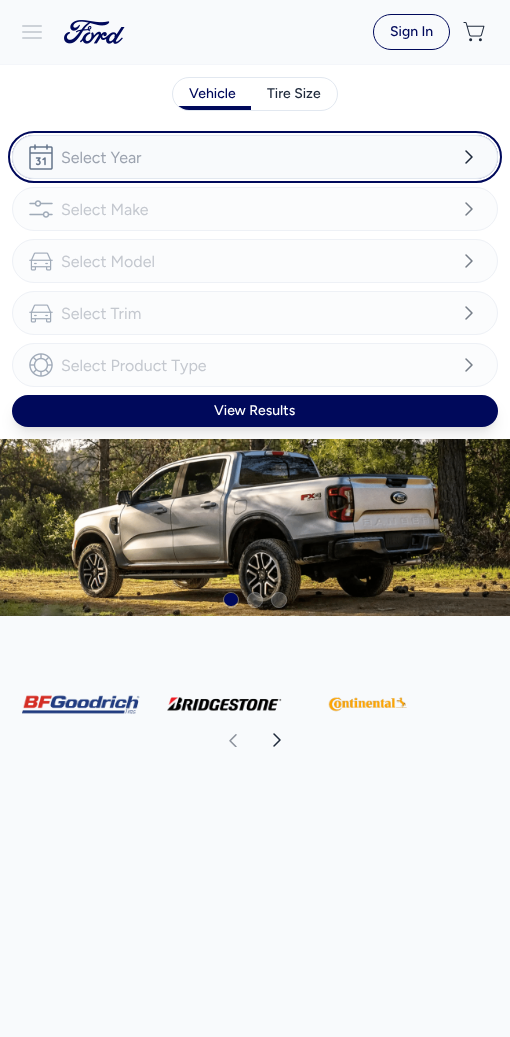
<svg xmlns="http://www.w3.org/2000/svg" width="510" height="1037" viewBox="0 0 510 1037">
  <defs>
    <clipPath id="clip1"><rect x="173" y="78" width="164" height="32" rx="16"/></clipPath>
    <filter id="blur1" x="-50%" y="-200%" width="200%" height="500%"><feGaussianBlur stdDeviation="3"/></filter>
    <filter id="blur2" x="-50%" y="-200%" width="200%" height="500%"><feGaussianBlur stdDeviation="7.5"/></filter>
  </defs>
  <rect width="100%" height="100%" fill="#f8fafc"/>
  <rect x="0" y="64" width="510" height="1" fill="#f4f6fa"/>
  <rect x="22" y="25" width="20" height="2" rx="1" fill="#cdd2d8"/>
  <rect x="22" y="31" width="20" height="2" rx="1" fill="#cdd2d8"/>
  <rect x="22" y="37" width="20" height="2" rx="1" fill="#cdd2d8"/>
  <image x="64" y="20" width="61" height="24" href="img1.png"/>
  <rect x="373.5" y="14.5" width="76" height="35" rx="17.5" fill="none" stroke="#00095b"/>
  <text x="390" y="36" font-family="Figtree" font-size="14" font-weight="500" fill="#00095b">Sign In</text>
  <image x="463" y="22" width="22" height="20" href="img2.png"/>
  <rect x="0" y="65" width="510" height="374" fill="#ffffff"/>
  <rect x="172.5" y="77.5" width="165" height="33" rx="16.5" fill="none" stroke="#e2e8f0"/>
  <text x="189" y="98" font-family="Figtree" font-size="14" font-weight="500" fill="#00095b">Vehicle</text>
  <text x="267" y="98" font-family="Figtree" font-size="14" font-weight="500" fill="#1e293b">Tire Size</text>
  <g clip-path="url(#clip1)">
    <rect x="173" y="106" width="78" height="4" fill="#00095b"/>
  </g>
  <rect x="10" y="133" width="490" height="48" rx="24" fill="none" stroke="#00095b" stroke-width="4"/>
  <rect x="11" y="134" width="488" height="46" rx="23" fill="none" stroke="#ffffff" stroke-width="2"/>
  <rect x="12.5" y="135.5" width="485" height="43" rx="21.5" fill="#f8fafc" stroke="#e2e8f0"/>
  <image x="29" y="144" width="24" height="26" href="img3.png"/>
  <text x="61" y="163" font-family="Figtree" font-size="16" fill="#9ca3af">Select Year</text>
  <image x="465" y="150" width="8" height="14" href="img4.png"/>
  <rect x="12.5" y="187.5" width="485" height="43" rx="21.5" fill="#fbfcfd" stroke="#eef1f6"/>
  <image x="29" y="200" width="24" height="18" href="img5.png"/>
  <text x="61" y="215" font-family="Figtree" font-size="16" fill="#c4c8cf">Select Make</text>
  <image x="465" y="202" width="8" height="14" href="img6.png"/>
  <rect x="12.5" y="239.5" width="485" height="43" rx="21.5" fill="#fbfcfd" stroke="#eef1f6"/>
  <image x="29" y="252" width="24" height="19" href="img7.png"/>
  <text x="61" y="267" font-family="Figtree" font-size="16" fill="#c4c8cf">Select Model</text>
  <image x="465" y="254" width="8" height="14" href="img6.png"/>
  <rect x="12.5" y="291.5" width="485" height="43" rx="21.5" fill="#fbfcfd" stroke="#eef1f6"/>
  <image x="29" y="304" width="24" height="19" href="img7.png"/>
  <text x="61" y="319" font-family="Figtree" font-size="16" fill="#c4c8cf">Select Trim</text>
  <image x="465" y="306" width="8" height="14" href="img6.png"/>
  <rect x="12.5" y="343.5" width="485" height="43" rx="21.5" fill="#fbfcfd" stroke="#eef1f6"/>
  <image x="29" y="353" width="24" height="24" href="img8.png"/>
  <text x="61" y="371" font-family="Figtree" font-size="16" fill="#c4c8cf">Select Product Type</text>
  <image x="465" y="358" width="8" height="14" href="img6.png"/>
  <rect x="16" y="403" width="478" height="24" rx="12" fill="#000000" fill-opacity="0.1" filter="url(#blur1)"/>
  <rect x="15" y="408" width="480" height="26" rx="13" fill="#000000" fill-opacity="0.1" filter="url(#blur2)"/>
  <rect x="12" y="395" width="486" height="32" rx="16" fill="#00095b"/>
  <text x="214" y="415" font-family="Figtree" font-size="14" font-weight="500" fill="#ffffff">View Results</text>
  <image x="0" y="439" width="510" height="177" href="img9.png"/>
  <circle cx="231" cy="600" r="8" fill="#ffffff" fill-opacity="0.2"/>
  <circle cx="231" cy="600" r="7.5" fill="none" stroke="#e2e8f0" stroke-opacity="0.2"/>
  <rect x="224" y="593" width="14" height="13" rx="6.5" fill="#00095b"/>
  <circle cx="255" cy="600" r="8" fill="#ffffff" fill-opacity="0.2"/>
  <circle cx="255" cy="600" r="7.5" fill="none" stroke="#e2e8f0" stroke-opacity="0.2"/>
  <circle cx="279" cy="600" r="8" fill="#ffffff" fill-opacity="0.2"/>
  <circle cx="279" cy="600" r="7.5" fill="none" stroke="#e2e8f0" stroke-opacity="0.2"/>
  <image x="22" y="695" width="118" height="19" href="img10.png"/>
  <image x="167" y="697" width="115" height="14" href="img11.png"/>
  <image x="328" y="697" width="79" height="15" href="img12.png"/>
  <image x="229" y="734" width="8" height="13" href="img13.png"/>
  <image x="273" y="733" width="8" height="14" href="img4.png"/>
</svg>
